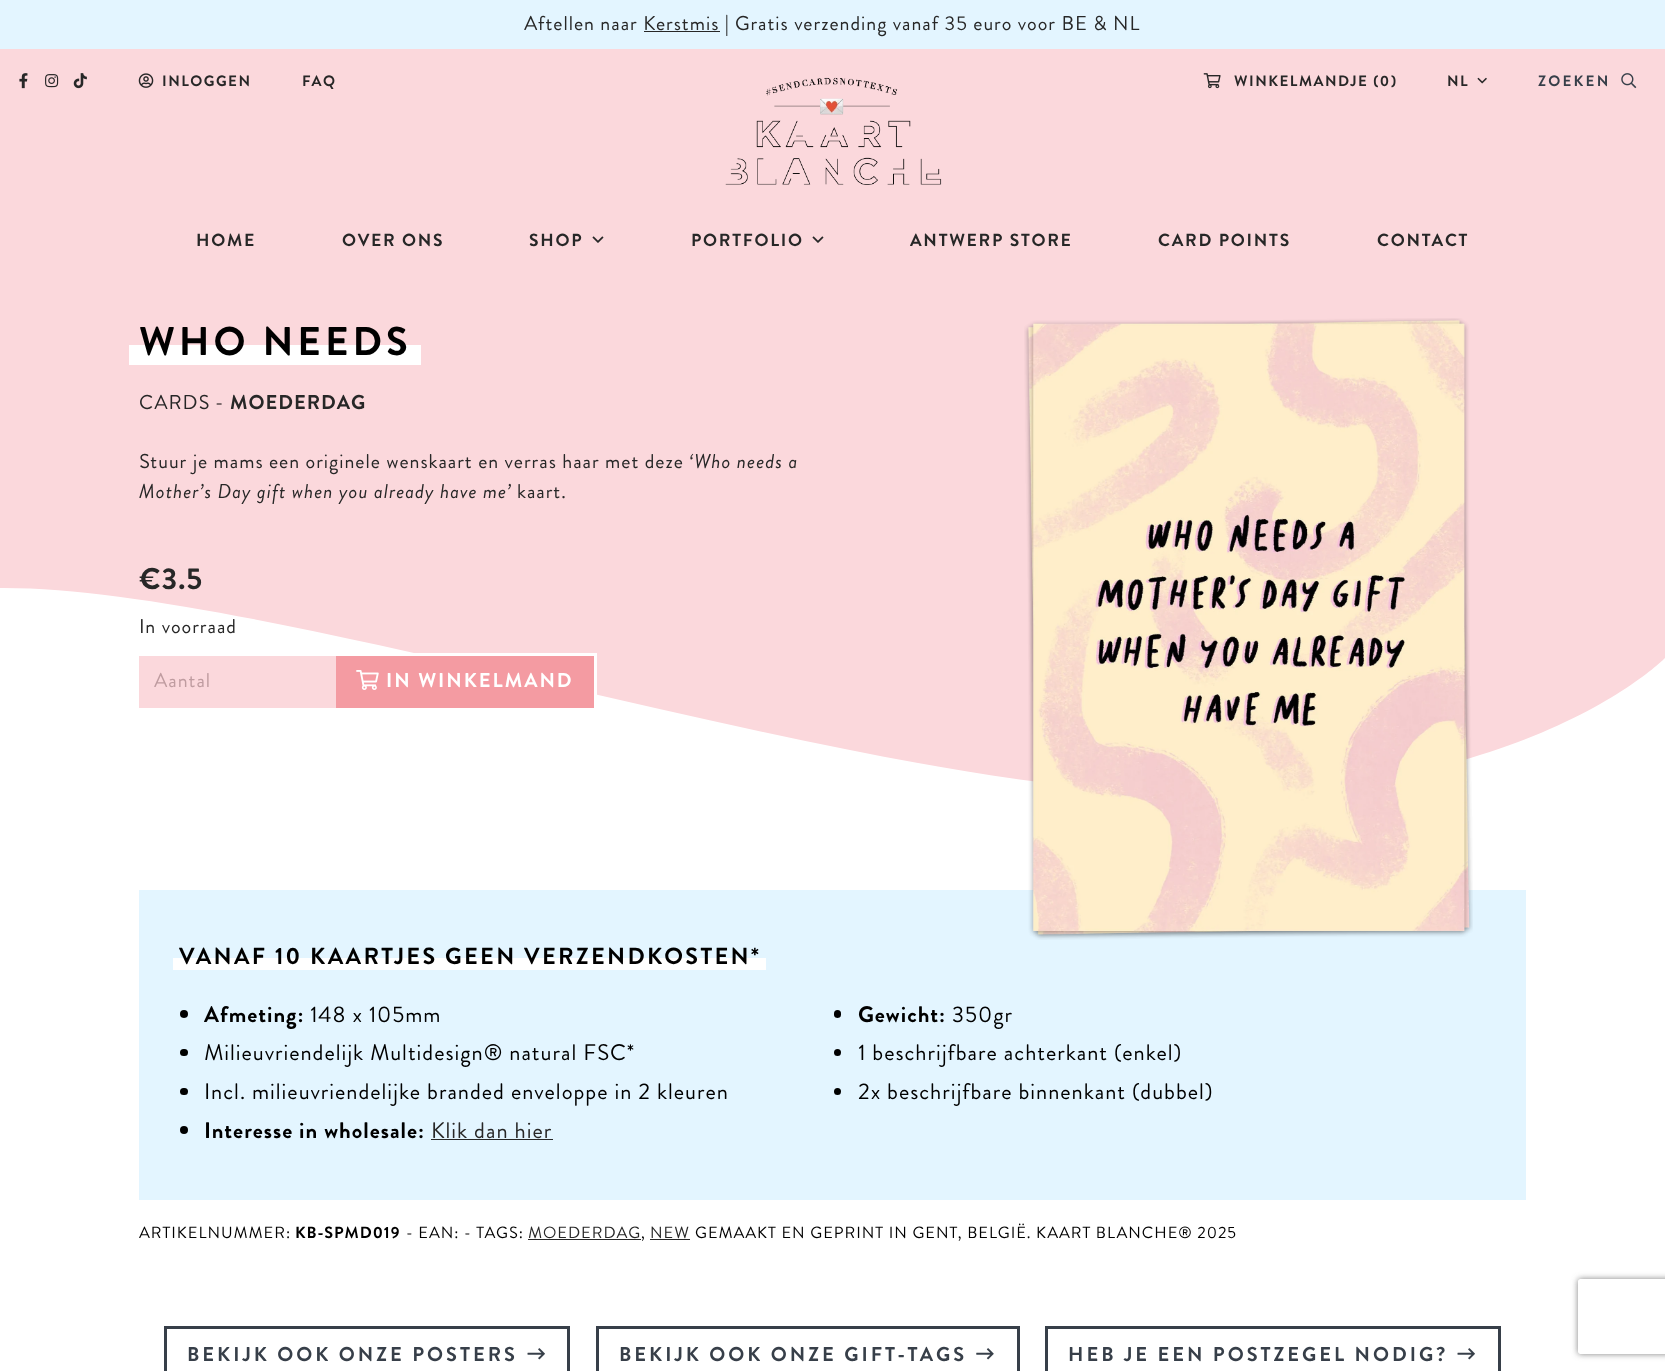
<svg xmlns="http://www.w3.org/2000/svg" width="1665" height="1371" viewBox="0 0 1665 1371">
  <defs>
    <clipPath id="clip1"><path d="M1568 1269H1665V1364H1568ZM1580.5 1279H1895.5C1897 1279 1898 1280 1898 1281.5V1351.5C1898 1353 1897 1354 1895.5 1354H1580.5C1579 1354 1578 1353 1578 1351.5V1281.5C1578 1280 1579 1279 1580.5 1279Z" clip-rule="evenodd"/></clipPath>
    <filter id="blur1" x="-50%" y="-200%" width="200%" height="500%"><feGaussianBlur stdDeviation="3"/></filter>
  </defs>
  <rect width="100%" height="100%" fill="#ffffff"/>
  <rect x="0" y="0" width="1665" height="49" fill="#e3f5ff"/>
  <text x="524" y="30" font-family="Brandon Grotesque" font-size="20" letter-spacing="1" fill="#272727">Aftellen naar Kerstmis</text>
  <text x="725" y="30" font-family="Brandon Grotesque" font-size="20" font-weight="bold" letter-spacing="1" fill="#272727">|</text>
  <text x="735" y="30" font-family="Brandon Grotesque" font-size="20" letter-spacing="1" fill="#272727">Gratis verzending vanaf 35 euro voor BE &amp; NL</text>
  <rect x="644" y="31" width="76" height="1" fill="#272727"/>
  <rect x="0" y="49" width="1665" height="226" fill="#fbd8dc"/>
  <image x="19" y="73" width="9" height="16" href="img1.png"/>
  <image x="45" y="74" width="14" height="14" href="img2.png"/>
  <image x="73" y="73" width="14" height="16" href="img3.png"/>
  <image x="138" y="73" width="16" height="15" href="img4.png"/>
  <text x="162" y="86" font-family="Brandon Grotesque" font-size="15" font-weight="bold" letter-spacing="1.5" fill="#272727">INLOGGEN</text>
  <text x="302" y="86" font-family="Brandon Grotesque" font-size="15" font-weight="bold" letter-spacing="1.5" fill="#272727">FAQ</text>
  <image x="1203" y="73" width="18" height="16" href="img5.png"/>
  <text x="1234" y="86" font-family="Brandon Grotesque" font-size="15" font-weight="bold" letter-spacing="1.5" fill="#272727">WINKELMANDJE (0</text>
  <text x="1391" y="86" font-family="Brandon Grotesque" font-size="15" font-weight="bold" letter-spacing="1.5" fill="#272727">)</text>
  <text x="1447" y="86" font-family="Brandon Grotesque" font-size="15" font-weight="bold" letter-spacing="1.5" fill="#272727">NL</text>
  <image x="1477" y="77" width="10" height="7" href="img6.png"/>
  <text x="1538" y="86" font-family="Brandon Grotesque" font-size="15" font-weight="bold" letter-spacing="2.25" fill="#373f49">ZOEKEN</text>
  <image x="1621" y="73" width="16" height="16" href="img7.png"/>
  <image x="725" y="77" width="217" height="108" href="img8.png"/>
  <text x="196" y="246" font-family="Brandon Grotesque" font-size="17.5" font-weight="bold" letter-spacing="1.75" fill="#272727">HOME</text>
  <text x="342" y="246" font-family="Brandon Grotesque" font-size="17.5" font-weight="bold" letter-spacing="1.75" fill="#272727">OVER ONS</text>
  <text x="529" y="246" font-family="Brandon Grotesque" font-size="17.5" font-weight="bold" letter-spacing="1.75" fill="#272727">SHOP</text>
  <image x="592" y="236" width="12" height="7" href="img9.png"/>
  <text x="691" y="246" font-family="Brandon Grotesque" font-size="17.5" font-weight="bold" letter-spacing="1.75" fill="#272727">PORTFOLIO</text>
  <image x="812" y="236" width="12" height="7" href="img9.png"/>
  <text x="910" y="246" font-family="Brandon Grotesque" font-size="17.5" font-weight="bold" letter-spacing="1.75" fill="#272727">ANTWERP STORE</text>
  <text x="1158" y="246" font-family="Brandon Grotesque" font-size="17.5" font-weight="bold" letter-spacing="1.75" fill="#272727">CARD POINTS</text>
  <text x="1377" y="246" font-family="Brandon Grotesque" font-size="17.5" font-weight="bold" letter-spacing="1.75" fill="#272727">CONTACT</text>
  <path d="M0 275V588C129 587 332 634 546 683C781 737 1028 795 1202 794C1532 793 1664 659 1665 658V275Z" fill="#fbd8dc"/>
  <rect x="129" y="345" width="292" height="20" fill="#ffffff"/>
  <text x="139" y="355" font-family="Brandon Grotesque" font-size="40" font-weight="bold" letter-spacing="4" fill="#000000">WHO NEEDS</text>
  <text x="139" y="409" font-family="Brandon Grotesque" font-size="20" letter-spacing="1" fill="#272727">CARDS</text>
  <text x="215" y="409" font-family="Brandon Grotesque" font-size="20" letter-spacing="1" fill="#000000">-</text>
  <text x="230" y="409" font-family="Brandon Grotesque" font-size="20" font-weight="bold" letter-spacing="1" fill="#272727">MOEDERDAG</text>
  <text x="139" y="468" font-family="Brandon Grotesque" font-size="20" letter-spacing="1" fill="#272727">Stuur je mams een originele wenskaart en verras haar met deze</text>
  <text x="689" y="468" font-family="Brandon Grotesque" font-size="20" font-style="italic" letter-spacing="1" fill="#272727">‘Who needs a</text>
  <text x="139" y="498" font-family="Brandon Grotesque" font-size="20" font-style="italic" letter-spacing="1" fill="#272727">Mother’s Day gift when you already have me’</text>
  <text x="517" y="498" font-family="Brandon Grotesque" font-size="20" letter-spacing="1" fill="#272727">kaart.</text>
  <text x="139" y="589" font-family="Brandon Grotesque" font-size="30" font-weight="bold" letter-spacing="1" fill="#272727">€3.5</text>
  <text x="139" y="633" font-family="Brandon Grotesque" font-size="20" letter-spacing="1" fill="#272727">In voorraad</text>
  <rect x="139" y="656" width="197" height="52" fill="#fbd8dc"/>
  <text x="154" y="687" font-family="Brandon Grotesque" font-size="20" letter-spacing="1" fill="#bf9ca0">Aantal</text>
  <rect x="336" y="656" width="258" height="52" fill="#f49ba2"/>
  <rect x="414" y="653" width="182" height="3" fill="#ffffff"/>
  <rect x="594" y="653" width="3" height="42" fill="#ffffff"/>
  <image x="356" y="670" width="23" height="20" href="img10.png"/>
  <text x="386" y="687" font-family="Brandon Grotesque" font-size="20" font-weight="bold" letter-spacing="2" fill="#ffffff">IN WINKELMAND</text>
  <rect x="139" y="890" width="1387" height="310" fill="#e3f5ff"/>
  <image x="1024" y="318" width="449" height="622" href="img11.png"/>
  <rect x="173" y="958" width="593" height="12" fill="#ffffff"/>
  <text x="179" y="964" font-family="Brandon Grotesque" font-size="23.4" font-weight="bold" letter-spacing="2.35" fill="#000000">VANAF 10 KAARTJES GEEN VERZENDKOSTEN*</text>
  <circle cx="184" cy="1014" r="4" fill="#000000"/>
  <text x="204" y="1022" font-family="Brandon Grotesque" font-size="22.5" font-weight="bold" letter-spacing="1" fill="#000000">Afmeting:</text>
  <text x="310" y="1022" font-family="Brandon Grotesque" font-size="22.5" letter-spacing="1" fill="#000000">148 x 105mm</text>
  <rect x="834" y="1010" width="7" height="8" rx="3.5" fill="#000000"/>
  <text x="858" y="1022" font-family="Brandon Grotesque" font-size="22.5" font-weight="bold" letter-spacing="1" fill="#000000">Gewicht:</text>
  <text x="952" y="1022" font-family="Brandon Grotesque" font-size="22.5" letter-spacing="1" fill="#000000">350gr</text>
  <rect x="180" y="1049" width="8" height="7" rx="3.5" fill="#000000"/>
  <text x="204" y="1060" font-family="Brandon Grotesque" font-size="22.5" letter-spacing="1" fill="#000000">Milieuvriendelijk Multidesign® natural FSC*</text>
  <circle cx="837.5" cy="1052.5" r="3.5" fill="#000000"/>
  <text x="858" y="1060" font-family="Brandon Grotesque" font-size="22.5" letter-spacing="1" fill="#000000">1 beschrijfbare achterkant (enkel)</text>
  <rect x="180" y="1088" width="8" height="7" rx="3.5" fill="#000000"/>
  <text x="204" y="1099" font-family="Brandon Grotesque" font-size="22.5" letter-spacing="1" fill="#000000">Incl. milieuvriendelijke branded enveloppe in 2 kleuren</text>
  <circle cx="837.5" cy="1091.5" r="3.5" fill="#000000"/>
  <text x="858" y="1099" font-family="Brandon Grotesque" font-size="22.5" letter-spacing="1" fill="#000000">2x beschrijfbare binnenkant (dubbel)</text>
  <circle cx="184" cy="1130" r="4" fill="#000000"/>
  <text x="204" y="1138" font-family="Brandon Grotesque" font-size="22.5" font-weight="bold" letter-spacing="1" fill="#000000">Interesse in wholesale:</text>
  <text x="431" y="1138" font-family="Brandon Grotesque" font-size="22.5" letter-spacing="1" fill="#272727">Klik dan hier</text>
  <rect x="431" y="1139" width="122" height="1" fill="#272727"/>
  <text x="139" y="1238" font-family="Brandon Grotesque" font-size="16.25" letter-spacing="1" fill="#000000">ARTIKELNUMMER:</text>
  <text x="295" y="1238" font-family="Brandon Grotesque" font-size="16.25" font-weight="bold" letter-spacing="1" fill="#000000">KB-SPMD019</text>
  <text x="406" y="1238" font-family="Brandon Grotesque" font-size="16.25" letter-spacing="1" fill="#000000">- EAN: - TAGS:</text>
  <text x="528" y="1238" font-family="Brandon Grotesque" font-size="16.25" letter-spacing="1" fill="#272727">MOEDERDAG</text>
  <text x="641" y="1238" font-family="Brandon Grotesque" font-size="16.25" letter-spacing="1" fill="#000000">,</text>
  <rect x="528" y="1239" width="113" height="1" fill="#272727"/>
  <rect x="650" y="1239" width="40" height="1" fill="#272727"/>
  <text x="650" y="1238" font-family="Brandon Grotesque" font-size="16.25" letter-spacing="1" fill="#272727">NEW</text>
  <text x="695" y="1238" font-family="Brandon Grotesque" font-size="16.25" letter-spacing="1" fill="#000000">GEMAAKT EN GEPRINT IN GENT, BELGIË. KAART BLANCHE® 2025</text>
  <rect x="165.5" y="1327.5" width="403" height="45" fill="none" stroke="#373f49" stroke-width="3"/>
  <text x="187" y="1361" font-family="Brandon Grotesque" font-size="20" font-weight="bold" letter-spacing="3" fill="#373f49">BEKIJK OOK ONZE POSTERS</text>
  <image x="527" y="1348" width="18" height="12" href="img12.png"/>
  <rect x="597.5" y="1327.5" width="421" height="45" fill="none" stroke="#373f49" stroke-width="3"/>
  <text x="619" y="1361" font-family="Brandon Grotesque" font-size="20" font-weight="bold" letter-spacing="3" fill="#373f49">BEKIJK OOK ONZE GIFT-TAGS</text>
  <image x="976" y="1348" width="18" height="12" href="img13.png"/>
  <rect x="1046.5" y="1327.5" width="453" height="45" fill="none" stroke="#373f49" stroke-width="3"/>
  <text x="1068" y="1361" font-family="Brandon Grotesque" font-size="20" font-weight="bold" letter-spacing="3" fill="#373f49">HEB JE EEN POSTZEGEL NODIG?</text>
  <image x="1457" y="1348" width="18" height="12" href="img12.png"/>
  <g clip-path="url(#clip1)">
    <rect x="1578" y="1279" width="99" height="75" rx="2.5" fill="#808080" filter="url(#blur1)"/>
  </g>
</svg>
